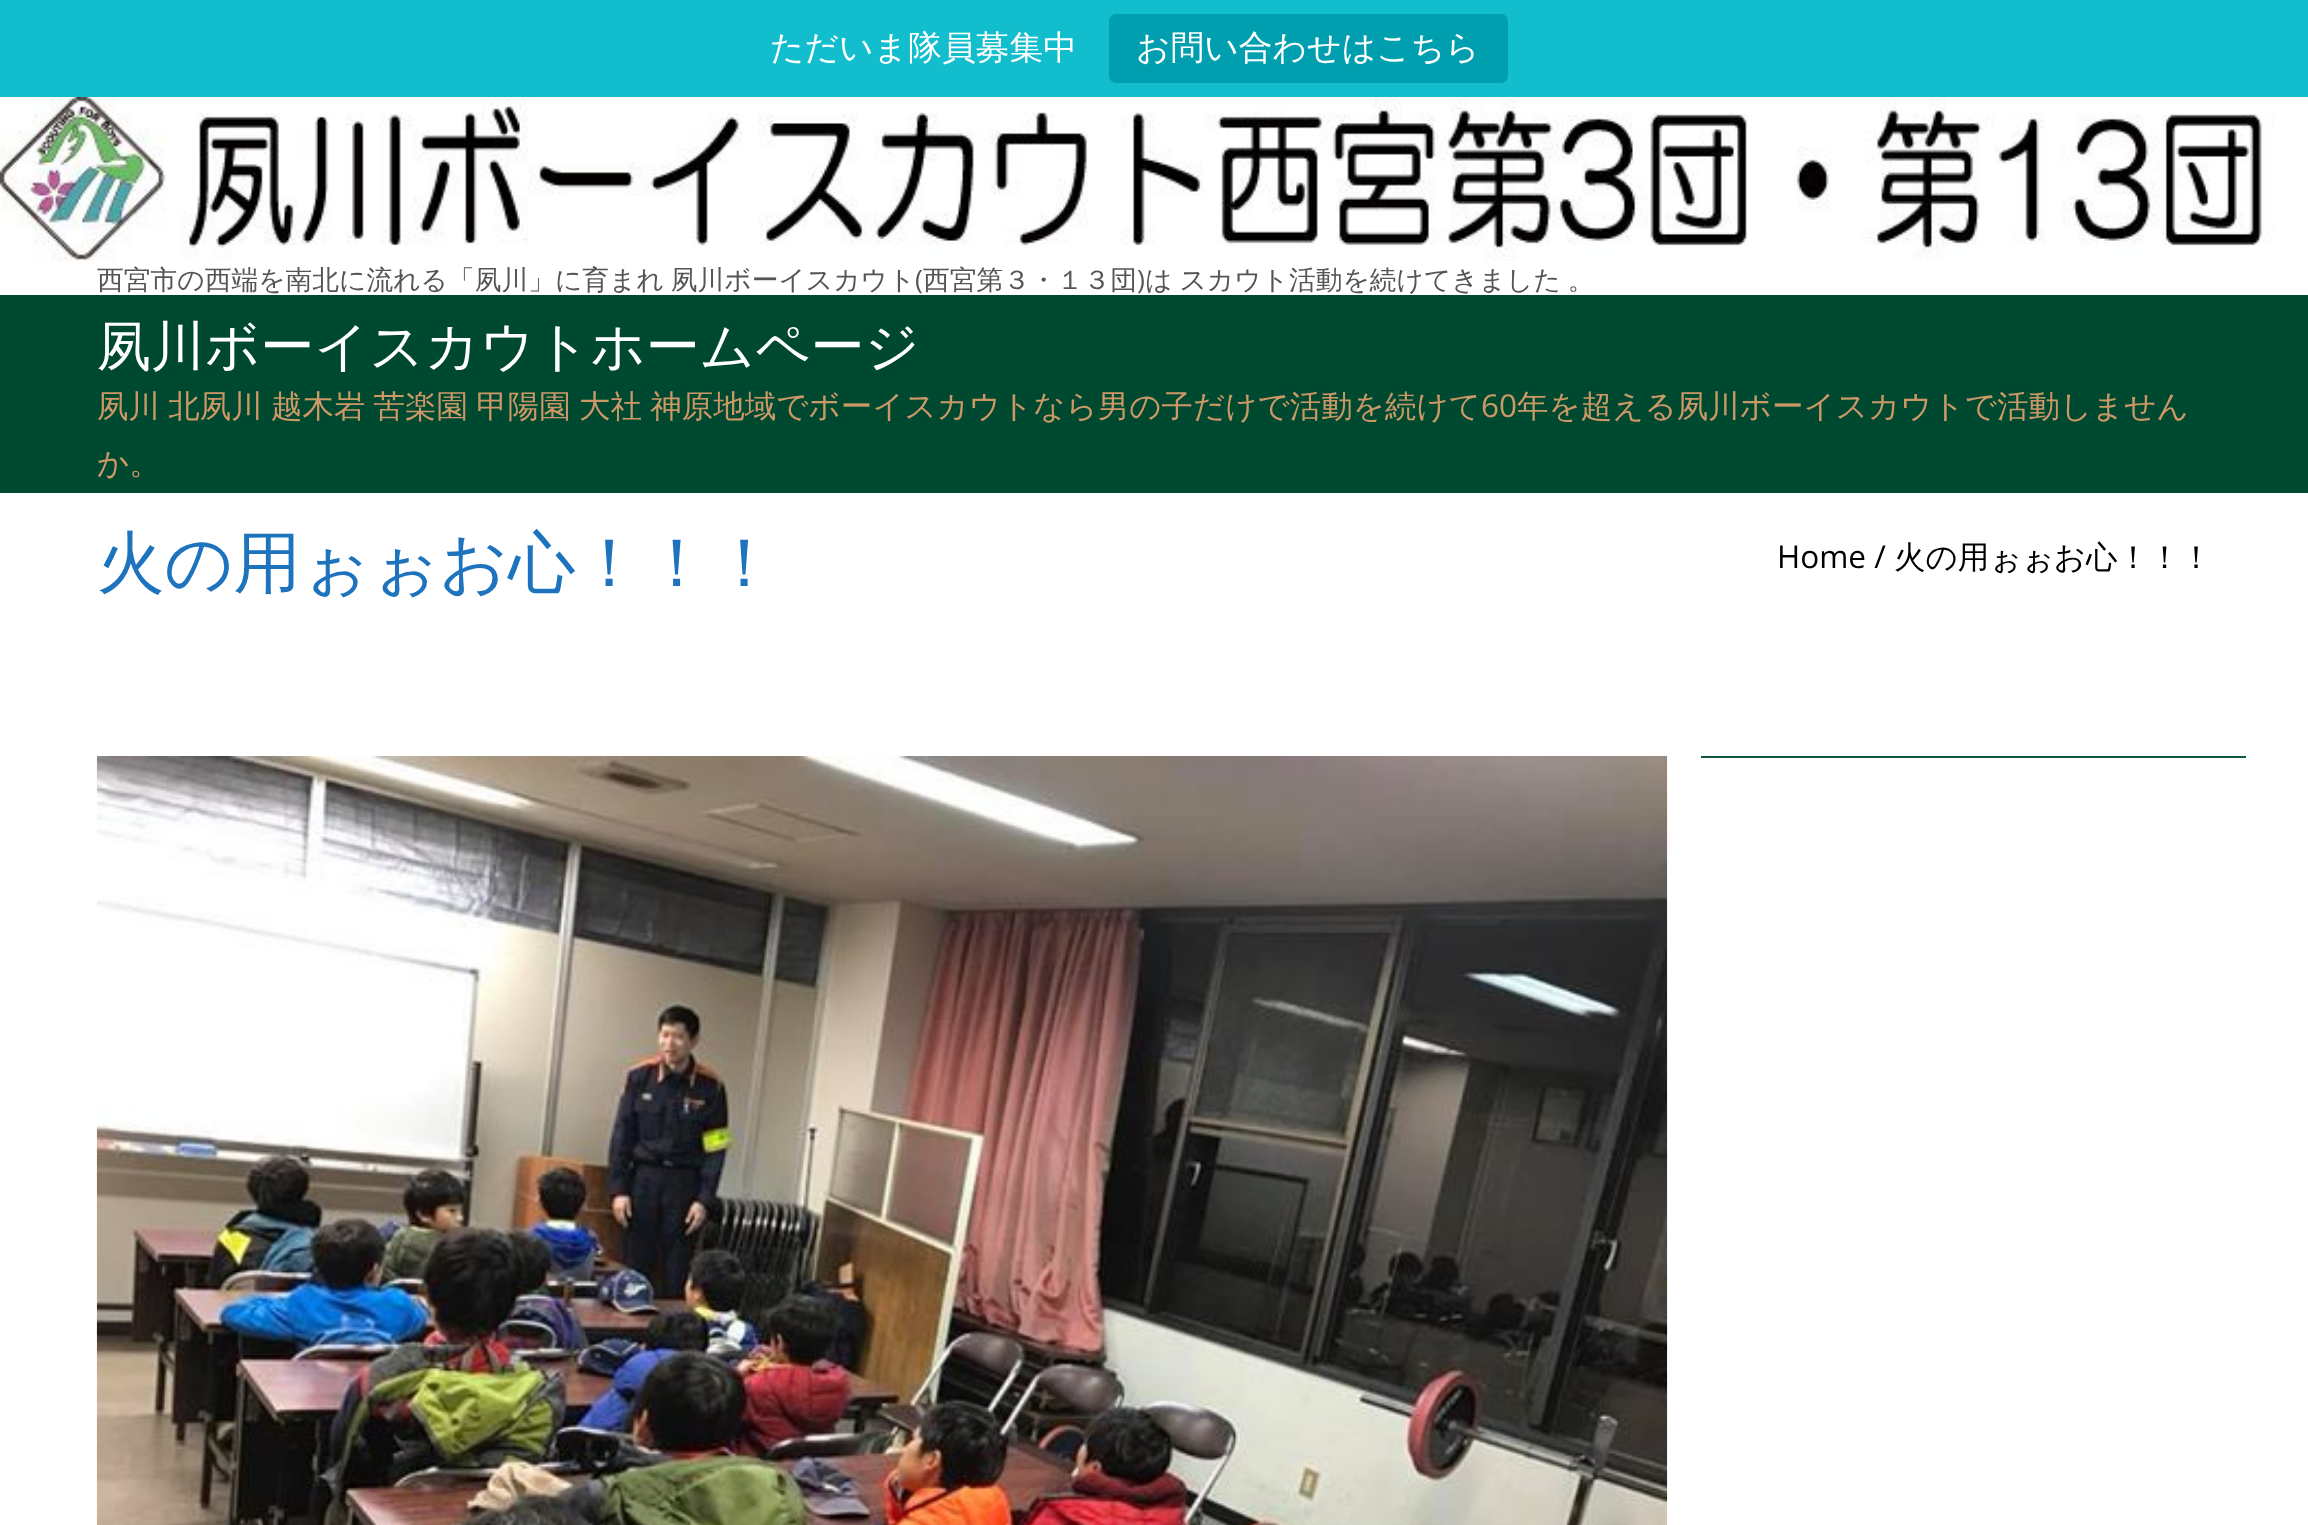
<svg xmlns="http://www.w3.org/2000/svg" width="2308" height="1525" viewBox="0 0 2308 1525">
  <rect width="100%" height="100%" fill="#ffffff"/>
  <rect x="0" y="0" width="2308" height="97" fill="#12bece"/>
  <text x="770" y="59" font-family="WenQuanYi Zen Hei" font-size="33.75" font-weight="500" fill="#ffffff">ただいま隊員募集中</text>
  <rect x="1109" y="14" width="399" height="69" rx="7" fill="#009faf"/>
  <text x="1136" y="59" font-family="WenQuanYi Zen Hei" font-size="33.75" font-weight="500" fill="#ffffff">お問い合わせはこちら</text>
  <image x="0" y="97" width="2274" height="164" href="img1.png"/>
  <text x="97" y="289" word-spacing="-1" font-family="WenQuanYi Zen Hei" font-size="26.75" font-weight="500" fill="#555555">西宮市の西端を南北に流れる「夙川」に育まれ 夙川ボーイスカウト</text>
  <text x="915" y="289" font-family="Open Sans" font-size="26.75" fill="#555555">(</text>
  <text x="923" y="289" font-family="WenQuanYi Zen Hei" font-size="26.75" font-weight="500" fill="#555555">西宮第３・１３団</text>
  <text x="1137" y="289" font-family="Open Sans" font-size="26.75" fill="#555555">)</text>
  <text x="1145" y="289" word-spacing="-1" font-family="WenQuanYi Zen Hei" font-size="26.75" font-weight="500" fill="#555555">は スカウト活動を続けてきました 。</text>
  <rect x="0" y="295" width="2308" height="198" fill="#004931"/>
  <text x="97" y="365" font-family="WenQuanYi Zen Hei" font-size="54" font-weight="500" fill="#ffffff">夙川ボーイスカウトホームページ</text>
  <text x="97" y="417" word-spacing="-1.25" font-family="WenQuanYi Zen Hei" font-size="31.5" font-weight="500" fill="#cc9966">夙川 北夙川 越木岩 苦楽園 甲陽園 大社 神原地域でボーイスカウトなら男の子だけで活動を続けて</text>
  <text x="1481" y="417" font-family="Open Sans" font-size="31.5" fill="#cc9966">60</text>
  <text x="1517" y="417" font-family="WenQuanYi Zen Hei" font-size="31.5" font-weight="500" fill="#cc9966">年を超える夙川ボーイスカウトで活動しません</text>
  <text x="97" y="474" font-family="WenQuanYi Zen Hei" font-size="31.5" font-weight="500" fill="#cc9966">か。</text>
  <text x="97" y="586" font-family="WenQuanYi Zen Hei" font-size="67.5" font-weight="500" fill="#1e73be">火の用ぉぉお心！！！</text>
  <text x="1777" y="568" font-family="Open Sans" font-size="31.5" fill="#000000">Home /</text>
  <text x="1894" y="568" font-family="WenQuanYi Zen Hei" font-size="31.5" font-weight="500" fill="#000000">火の用ぉぉお心！！！</text>
  <image x="96" y="756" width="1572" height="769" href="img2.png"/>
  <rect x="1701" y="756" width="545" height="2" fill="#115740"/>
</svg>
